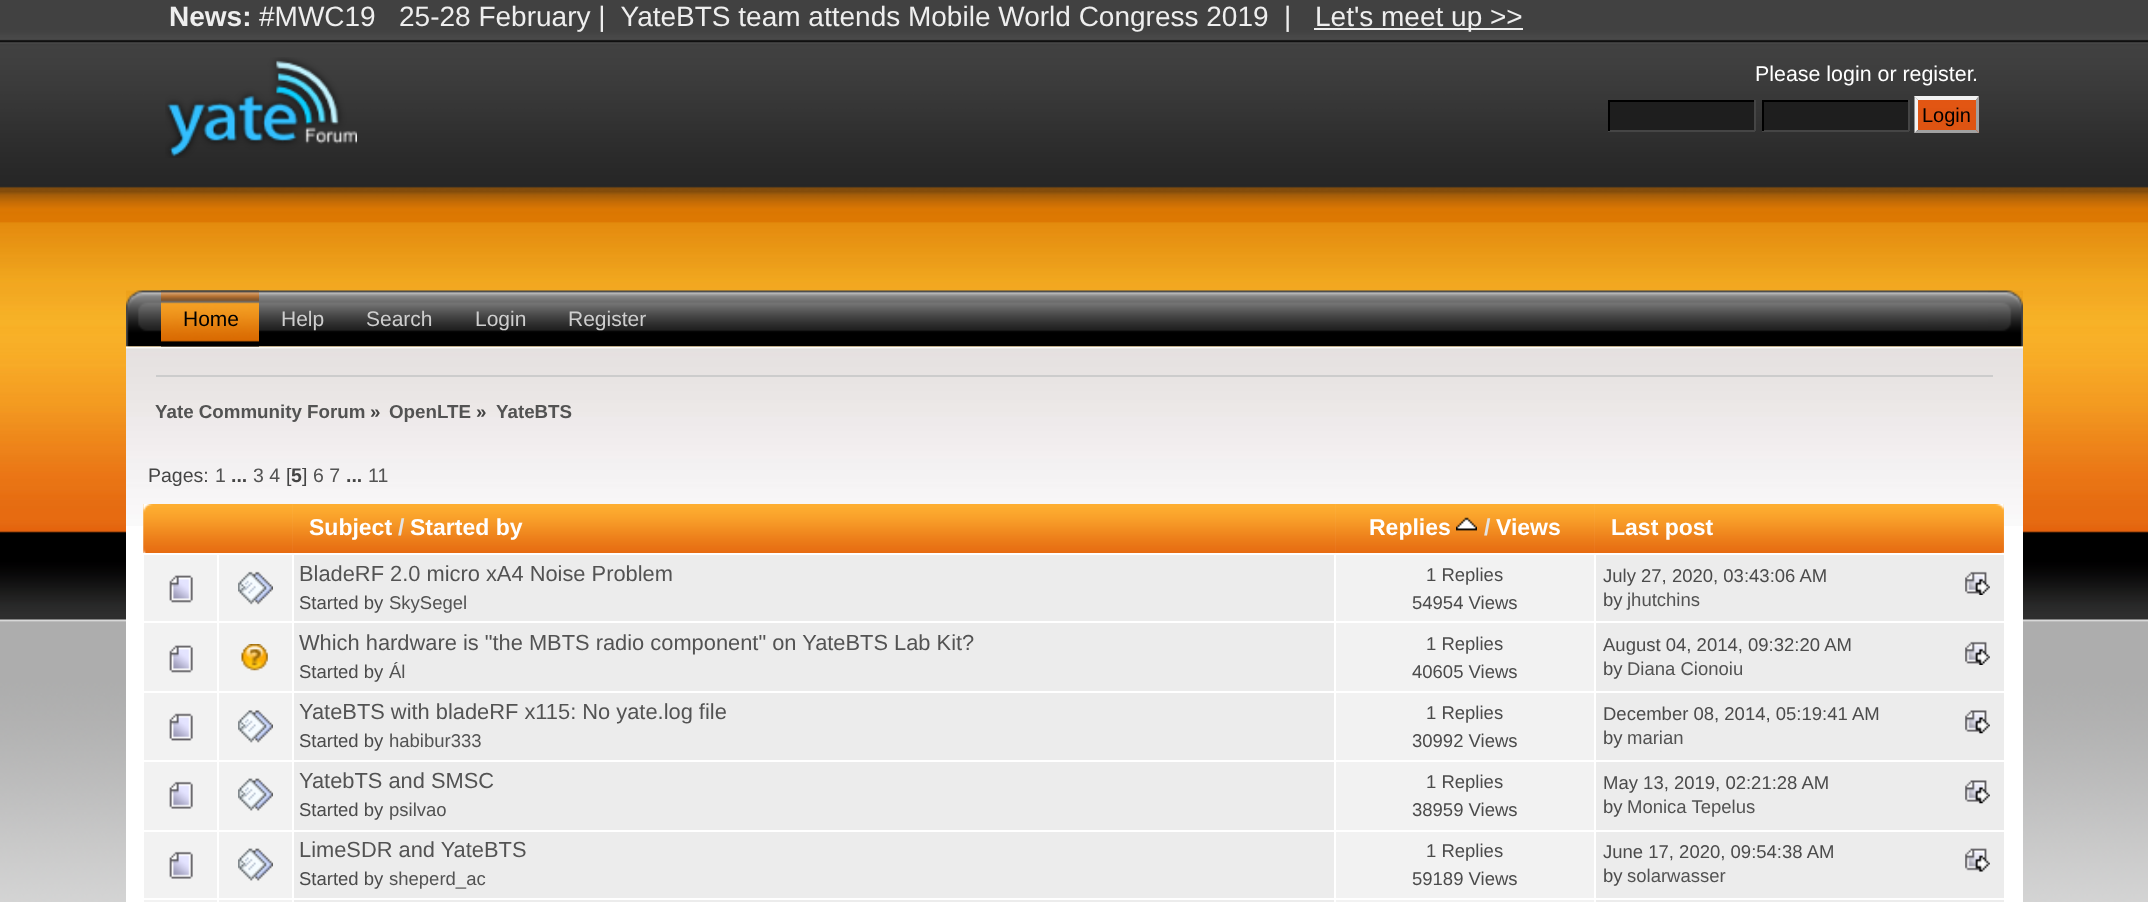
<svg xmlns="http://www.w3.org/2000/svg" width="2148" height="902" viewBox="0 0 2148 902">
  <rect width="100%" height="100%" fill="#ffffff"/>
  <image x="0" y="0" width="2148" height="902" href="img1.png"/>
  <text x="169" y="26" font-family="Liberation Sans" font-size="28" font-weight="bold" fill="#eeeeee">News:</text>
  <text x="259" y="26" font-family="Liberation Sans" font-size="28" fill="#eeeeee" xml:space="preserve">#MWC19   25-28 February |  YateBTS team attends Mobile World Congress 2019  |</text>
  <rect x="1314" y="28" width="209" height="2" fill="#eeeeee"/>
  <text x="1315" y="26" font-family="Liberation Sans" font-size="28" fill="#eeeeee">Let's meet up &gt;&gt;</text>
  <image x="165" y="57" width="192" height="101" href="img2.png"/>
  <text x="1755" y="81" font-family="Liberation Sans" font-size="21.4" fill="#ffffff">Please login or register</text>
  <text x="1972" y="81" font-family="Liberation Sans" font-size="21.4" fill="#ffffff">.</text>
  <rect x="1610" y="102" width="144" height="28" fill="#1e1e1e"/>
  <rect x="1608" y="100" width="147" height="2" fill="#000000"/>
  <rect x="1754" y="100" width="2" height="31" fill="#454545"/>
  <rect x="1608" y="130" width="147" height="2" fill="#454545"/>
  <rect x="1608" y="100" width="2" height="31" fill="#000000"/>
  <rect x="1764" y="102" width="144" height="28" fill="#1e1e1e"/>
  <rect x="1762" y="100" width="147" height="2" fill="#000000"/>
  <rect x="1908" y="100" width="2" height="31" fill="#454545"/>
  <rect x="1762" y="130" width="147" height="2" fill="#454545"/>
  <rect x="1762" y="100" width="2" height="31" fill="#000000"/>
  <image x="1918" y="99" width="62" height="34" href="img3.png"/>
  <path d="M1914 96H1979L1976 100H1918Z" fill="#f2f2f2"/>
  <path d="M1979 96V133L1976 129.5V100Z" fill="#a1a1a1"/>
  <path d="M1979 133H1914L1918 130H1976Z" fill="#a1a1a1"/>
  <path d="M1914.5 133V96L1918 100V129.5Z" fill="#f2f2f2"/>
  <text x="1922" y="122" font-family="Liberation Sans" font-size="20" fill="#000000">Login</text>
  <image x="126" y="290" width="35" height="57" href="img4.png"/>
  <image x="1988" y="290" width="35" height="57" href="img5.png"/>
  <image x="161" y="290" width="1827" height="57" href="img6.png"/>
  <image x="126" y="346" width="1897" height="180" href="img8.png"/>
  <image x="161" y="290" width="98" height="57" href="img7.png"/>
  <text x="183" y="326" font-family="Liberation Sans" font-size="21" fill="#000000">Home</text>
  <text x="281" y="326" font-family="Liberation Sans" font-size="21" fill="#cecece">Help</text>
  <text x="366" y="326" font-family="Liberation Sans" font-size="21" fill="#cecece">Search</text>
  <text x="475" y="326" font-family="Liberation Sans" font-size="21" fill="#cecece">Login</text>
  <text x="568" y="326" font-family="Liberation Sans" font-size="21" fill="#cecece">Register</text>
  <rect x="126" y="526" width="1897" height="376" fill="#ffffff"/>
  <rect x="156" y="375" width="1837" height="2" fill="#cccccc"/>
  <text x="155" y="418" font-family="Liberation Sans" font-size="18.75" font-weight="bold" fill="#535353">Yate Community Forum</text>
  <text x="370" y="418" font-family="Liberation Sans" font-size="18.75" font-weight="bold" fill="#444444">»</text>
  <text x="389" y="418" font-family="Liberation Sans" font-size="18.75" font-weight="bold" fill="#535353">OpenLTE</text>
  <text x="476" y="418" font-family="Liberation Sans" font-size="18.75" font-weight="bold" fill="#444444">»</text>
  <text x="496" y="418" font-family="Liberation Sans" font-size="18.75" font-weight="bold" fill="#535353">YateBTS</text>
  <text x="148" y="482" font-family="Liberation Sans" font-size="19.5" fill="#444444">Pages:</text>
  <text x="215" y="482" font-family="Liberation Sans" font-size="19.5" fill="#535353">1</text>
  <text x="231" y="482" font-family="Liberation Sans" font-size="19.5" font-weight="bold" fill="#444444">...</text>
  <text x="253" y="482" font-family="Liberation Sans" font-size="19.5" fill="#535353">3 4</text>
  <text x="286" y="482" font-family="Liberation Sans" font-size="19.5" fill="#444444">[</text>
  <text x="291" y="482" font-family="Liberation Sans" font-size="19.5" font-weight="bold" fill="#444444">5</text>
  <text x="302" y="482" font-family="Liberation Sans" font-size="19.5" fill="#444444">]</text>
  <text x="313" y="482" font-family="Liberation Sans" font-size="19.5" fill="#535353">6 7</text>
  <text x="346" y="482" font-family="Liberation Sans" font-size="19.5" font-weight="bold" fill="#444444">...</text>
  <text x="368" y="482" font-family="Liberation Sans" font-size="19.5" fill="#535353">11</text>
  <image x="143" y="504" width="150" height="49" href="img9.png"/>
  <image x="292" y="504" width="1044" height="49" href="img10.png"/>
  <text x="309" y="535" font-family="Liberation Sans" font-size="23" font-weight="bold" fill="#ffffff">Subject</text>
  <text x="398" y="535" font-family="Liberation Sans" font-size="23" font-weight="bold" fill="#e3e3e3">/</text>
  <text x="410" y="535" font-family="Liberation Sans" font-size="23" font-weight="bold" fill="#ffffff">Started by</text>
  <image x="1335" y="504" width="260" height="49" href="img11.png"/>
  <text x="1369" y="535" font-family="Liberation Sans" font-size="23" font-weight="bold" fill="#ffffff">Replies</text>
  <image x="1456" y="517" width="21" height="14" href="img12.png"/>
  <text x="1484" y="535" font-family="Liberation Sans" font-size="23" font-weight="bold" fill="#e3e3e3">/</text>
  <text x="1496" y="535" font-family="Liberation Sans" font-size="23" font-weight="bold" fill="#ffffff">Views</text>
  <image x="1594" y="504" width="410" height="49" href="img13.png"/>
  <text x="1611" y="535" font-family="Liberation Sans" font-size="23" font-weight="bold" fill="#ffffff">Last post</text>
  <rect x="144" y="555" width="73" height="66" fill="#f2f2f2"/>
  <image x="169" y="575" width="24" height="28" href="img14.png"/>
  <rect x="219" y="555" width="73" height="66" fill="#f2f2f2"/>
  <image x="238" y="571" width="35" height="34" href="img15.png"/>
  <rect x="294" y="555" width="1040" height="66" fill="#ececec"/>
  <text x="299" y="581" font-family="Liberation Sans" font-size="21.85" fill="#535353">BladeRF 2.0 micro xA4 Noise Problem</text>
  <text x="299" y="609" font-family="Liberation Sans" font-size="18.5" fill="#4b4b4b">Started by</text>
  <text x="389" y="609" font-family="Liberation Sans" font-size="18.5" fill="#535353">SkySegel</text>
  <rect x="1336" y="555" width="258" height="66" fill="#f2f2f2"/>
  <text x="1426" y="581" font-family="Liberation Sans" font-size="18.5" fill="#4b4b4b">1 Replies</text>
  <text x="1412" y="609" font-family="Liberation Sans" font-size="18.5" fill="#4b4b4b">54954 Views</text>
  <rect x="1596" y="555" width="408" height="66" fill="#ececec"/>
  <text x="1603" y="582" font-family="Liberation Sans" font-size="18.5" fill="#4b4b4b">July 27, 2020, 03:43:06 AM</text>
  <image x="1965" y="571" width="25" height="24" href="img16.png"/>
  <text x="1603" y="606" font-family="Liberation Sans" font-size="18.5" fill="#4b4b4b">by</text>
  <text x="1627" y="606" font-family="Liberation Sans" font-size="18.5" fill="#535353">jhutchins</text>
  <rect x="144" y="623" width="73" height="68" fill="#f2f2f2"/>
  <image x="169" y="645" width="24" height="28" href="img14.png"/>
  <rect x="219" y="623" width="73" height="68" fill="#f2f2f2"/>
  <image x="241" y="644" width="27" height="27" href="img17.png"/>
  <rect x="294" y="623" width="1040" height="68" fill="#ececec"/>
  <text x="299" y="650" font-family="Liberation Sans" font-size="21.85" fill="#535353">Which hardware is "the MBTS radio component" on YateBTS Lab Kit?</text>
  <text x="299" y="678" font-family="Liberation Sans" font-size="18.5" fill="#4b4b4b">Started by</text>
  <text x="389" y="678" font-family="Liberation Sans" font-size="18.5" fill="#535353">Ál</text>
  <rect x="1336" y="623" width="258" height="68" fill="#f2f2f2"/>
  <text x="1426" y="650" font-family="Liberation Sans" font-size="18.5" fill="#4b4b4b">1 Replies</text>
  <text x="1412" y="678" font-family="Liberation Sans" font-size="18.5" fill="#4b4b4b">40605 Views</text>
  <rect x="1596" y="623" width="408" height="68" fill="#ececec"/>
  <text x="1603" y="651" font-family="Liberation Sans" font-size="18.5" fill="#4b4b4b">August 04, 2014, 09:32:20 AM</text>
  <image x="1965" y="641" width="25" height="24" href="img16.png"/>
  <text x="1603" y="675" font-family="Liberation Sans" font-size="18.5" fill="#4b4b4b">by</text>
  <text x="1627" y="675" font-family="Liberation Sans" font-size="18.5" fill="#535353">Diana Cionoiu</text>
  <rect x="144" y="693" width="73" height="67" fill="#f2f2f2"/>
  <image x="169" y="713" width="24" height="28" href="img18.png"/>
  <rect x="219" y="693" width="73" height="67" fill="#f2f2f2"/>
  <image x="238" y="710" width="35" height="33" href="img19.png"/>
  <rect x="294" y="693" width="1040" height="67" fill="#ececec"/>
  <text x="299" y="719" font-family="Liberation Sans" font-size="21.85" fill="#535353">YateBTS with bladeRF x115: No yate.log file</text>
  <text x="299" y="747" font-family="Liberation Sans" font-size="18.5" fill="#4b4b4b">Started by</text>
  <text x="389" y="747" font-family="Liberation Sans" font-size="18.5" fill="#535353">habibur333</text>
  <rect x="1336" y="693" width="258" height="67" fill="#f2f2f2"/>
  <text x="1426" y="719" font-family="Liberation Sans" font-size="18.5" fill="#4b4b4b">1 Replies</text>
  <text x="1412" y="747" font-family="Liberation Sans" font-size="18.5" fill="#4b4b4b">30992 Views</text>
  <rect x="1596" y="693" width="408" height="67" fill="#ececec"/>
  <text x="1603" y="720" font-family="Liberation Sans" font-size="18.5" fill="#4b4b4b">December 08, 2014, 05:19:41 AM</text>
  <image x="1965" y="710" width="25" height="24" href="img20.png"/>
  <text x="1603" y="744" font-family="Liberation Sans" font-size="18.5" fill="#4b4b4b">by</text>
  <text x="1627" y="744" font-family="Liberation Sans" font-size="18.5" fill="#535353">marian</text>
  <rect x="144" y="762" width="73" height="68" fill="#f2f2f2"/>
  <image x="169" y="781" width="24" height="28" href="img21.png"/>
  <rect x="219" y="762" width="73" height="68" fill="#f2f2f2"/>
  <image x="238" y="778" width="35" height="33" href="img22.png"/>
  <rect x="294" y="762" width="1040" height="68" fill="#ececec"/>
  <text x="299" y="788" font-family="Liberation Sans" font-size="21.85" fill="#535353">YatebTS and SMSC</text>
  <text x="299" y="816" font-family="Liberation Sans" font-size="18.5" fill="#4b4b4b">Started by</text>
  <text x="389" y="816" font-family="Liberation Sans" font-size="18.5" fill="#535353">psilvao</text>
  <rect x="1336" y="762" width="258" height="68" fill="#f2f2f2"/>
  <text x="1426" y="788" font-family="Liberation Sans" font-size="18.5" fill="#4b4b4b">1 Replies</text>
  <text x="1412" y="816" font-family="Liberation Sans" font-size="18.5" fill="#4b4b4b">38959 Views</text>
  <rect x="1596" y="762" width="408" height="68" fill="#ececec"/>
  <text x="1603" y="789" font-family="Liberation Sans" font-size="18.5" fill="#4b4b4b">May 13, 2019, 02:21:28 AM</text>
  <image x="1965" y="780" width="25" height="24" href="img20.png"/>
  <text x="1603" y="813" font-family="Liberation Sans" font-size="18.5" fill="#4b4b4b">by</text>
  <text x="1627" y="813" font-family="Liberation Sans" font-size="18.5" fill="#535353">Monica Tepelus</text>
  <rect x="144" y="832" width="73" height="66" fill="#f2f2f2"/>
  <image x="169" y="851" width="24" height="28" href="img21.png"/>
  <rect x="219" y="832" width="73" height="66" fill="#f2f2f2"/>
  <image x="238" y="848" width="35" height="33" href="img22.png"/>
  <rect x="294" y="832" width="1040" height="66" fill="#ececec"/>
  <text x="299" y="857" font-family="Liberation Sans" font-size="21.85" fill="#535353">LimeSDR and YateBTS</text>
  <text x="299" y="885" font-family="Liberation Sans" font-size="18.5" fill="#4b4b4b">Started by</text>
  <text x="389" y="885" font-family="Liberation Sans" font-size="18.5" fill="#535353">sheperd_ac</text>
  <rect x="1336" y="832" width="258" height="66" fill="#f2f2f2"/>
  <text x="1426" y="857" font-family="Liberation Sans" font-size="18.5" fill="#4b4b4b">1 Replies</text>
  <text x="1412" y="885" font-family="Liberation Sans" font-size="18.5" fill="#4b4b4b">59189 Views</text>
  <rect x="1596" y="832" width="408" height="66" fill="#ececec"/>
  <text x="1603" y="858" font-family="Liberation Sans" font-size="18.5" fill="#4b4b4b">June 17, 2020, 09:54:38 AM</text>
  <image x="1965" y="848" width="25" height="24" href="img23.png"/>
  <text x="1603" y="882" font-family="Liberation Sans" font-size="18.5" fill="#4b4b4b">by</text>
  <text x="1627" y="882" font-family="Liberation Sans" font-size="18.5" fill="#535353">solarwasser</text>
  <rect x="144" y="900" width="148" height="2" fill="#f2f2f2"/>
  <rect x="217" y="898" width="2" height="4" fill="#ffffff"/>
  <rect x="292" y="900" width="1043" height="2" fill="#ececec"/>
  <rect x="1335" y="900" width="259" height="2" fill="#f2f2f2"/>
  <rect x="1334" y="898" width="2" height="4" fill="#ffffff"/>
  <rect x="292" y="898" width="2" height="4" fill="#ffffff"/>
  <rect x="1594" y="900" width="410" height="2" fill="#ececec"/>
  <rect x="1594" y="898" width="2" height="4" fill="#ffffff"/>
</svg>
